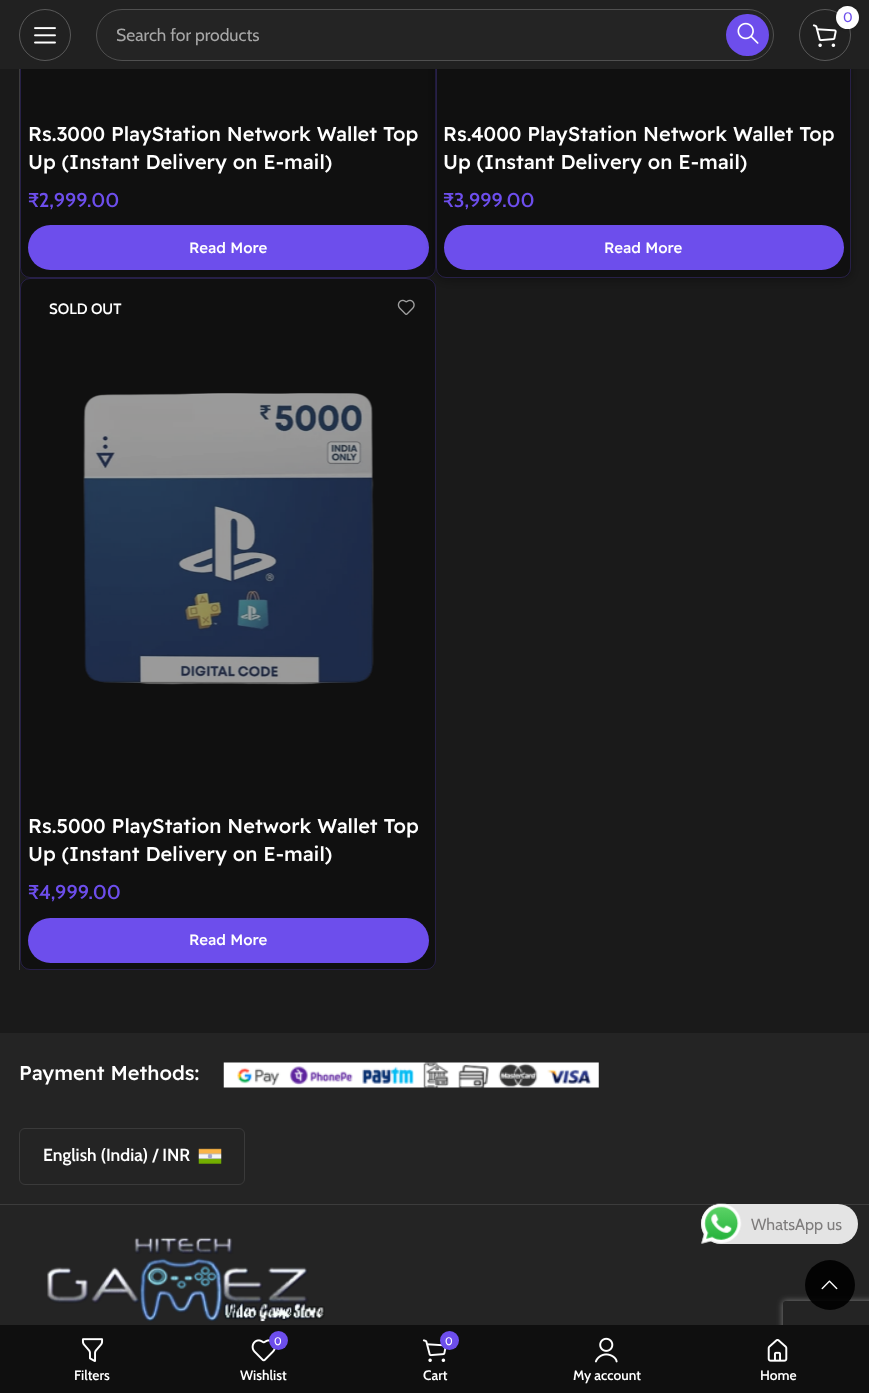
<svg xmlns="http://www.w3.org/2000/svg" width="869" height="1393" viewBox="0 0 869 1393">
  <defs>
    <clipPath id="clip1"><path d="M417 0H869V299H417ZM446-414H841C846.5-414 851-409.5 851-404V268C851 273.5 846.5 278 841 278H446C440.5 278 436 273.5 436 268V-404C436-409.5 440.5-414 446-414Z" clip-rule="evenodd"/></clipPath>
    <filter id="blur1" x="-50%" y="-200%" width="200%" height="500%"><feGaussianBlur stdDeviation="6"/></filter>
    <filter id="blur2" x="-50%" y="-200%" width="200%" height="500%"><feGaussianBlur stdDeviation="2.5"/></filter>
    <clipPath id="clip2"><path d="M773 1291H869V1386H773ZM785.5 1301H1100.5C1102 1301 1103 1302 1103 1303.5V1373.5C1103 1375 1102 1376 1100.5 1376H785.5C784 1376 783 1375 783 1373.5V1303.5C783 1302 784 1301 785.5 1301Z" clip-rule="evenodd"/></clipPath>
    <filter id="blur3" x="-50%" y="-200%" width="200%" height="500%"><feGaussianBlur stdDeviation="3"/></filter>
  </defs>
  <rect width="100%" height="100%" fill="#1a1a1a"/>
  <rect x="20" y="-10" width="416" height="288" rx="10" fill="#0a0a0a" fill-opacity="0.65"/>
  <rect x="20.5" y="-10.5" width="415" height="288" rx="9.5" fill="none" stroke="#6d4eec" stroke-opacity="0.25"/>
  <rect x="28" y="225" width="401" height="45" rx="22.5" fill="#6d4eec"/>
  <g clip-path="url(#clip1)">
    <rect x="436" y="-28" width="415" height="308" rx="10" fill="#000000" fill-opacity="0.35" filter="url(#blur1)"/>
  </g>
  <rect x="436" y="-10" width="415" height="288" rx="10" fill="#0a0a0a" fill-opacity="0.65"/>
  <rect x="436.5" y="-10.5" width="414" height="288" rx="9.5" fill="none" stroke="#6d4eec" stroke-opacity="0.25"/>
  <rect x="0" y="0" width="869" height="69" fill="#212121"/>
  <circle cx="45" cy="35" r="25.5" fill="none" stroke="#595959"/>
  <image x="34" y="27" width="22" height="17" href="img1.png"/>
  <circle cx="825" cy="35" r="25.5" fill="none" stroke="#595959"/>
  <image x="812" y="24" width="25" height="23" href="img2.png"/>
  <rect x="836" y="6" width="23" height="23" rx="11.5" fill="#000000" fill-opacity="0.17" filter="url(#blur2)"/>
  <circle cx="847.5" cy="17.5" r="11.5" fill="#ffffff"/>
  <text x="843" y="22" font-family="Cabin" font-size="13.75" fill="#6d4eec">0</text>
  <rect x="96.5" y="9.5" width="677" height="51" rx="25.5" fill="#242424" stroke="#505050"/>
  <text x="116" y="41" font-family="Cabin" font-size="17.5" fill="#a7a7a7">Search for products</text>
  <rect x="726" y="14" width="43" height="42" rx="21" fill="#6d4eec"/>
  <image x="737" y="22" width="22" height="22" href="img3.png"/>
  <rect x="19" y="69" width="1" height="901" fill="#3c3c3c"/>
  <text x="28" y="141" font-family="Readex Pro" font-size="20" font-weight="500" fill="#ffffff">Rs.3000 PlayStation Network Wallet Top</text>
  <text x="28" y="169" font-family="Readex Pro" font-size="20" font-weight="500" fill="#ffffff">Up (Instant Delivery on E-mail)</text>
  <text x="28" y="207" font-family="Cabin" font-size="20" font-weight="600" fill="#6d4eec">₹2,999.00</text>
  <text x="189" y="253" font-family="Readex Pro" font-size="15" font-weight="500" fill="#ffffff">Read More</text>
  <text x="443" y="141" font-family="Readex Pro" font-size="20" font-weight="500" fill="#ffffff">Rs.4000 PlayStation Network Wallet Top</text>
  <text x="443" y="169" font-family="Readex Pro" font-size="20" font-weight="500" fill="#ffffff">Up (Instant Delivery on E-mail)</text>
  <text x="443" y="207" font-family="Cabin" font-size="20" font-weight="600" fill="#6d4eec">₹3,999.00</text>
  <rect x="444" y="225" width="400" height="45" rx="22.5" fill="#6d4eec"/>
  <text x="604" y="253" font-family="Readex Pro" font-size="15" font-weight="500" fill="#ffffff">Read More</text>
  <rect x="20" y="278" width="416" height="692" rx="10" fill="#0a0a0a" fill-opacity="0.65"/>
  <rect x="20.5" y="278.5" width="415" height="691" rx="9.5" fill="none" stroke="#6d4eec" stroke-opacity="0.25"/>
  <text x="49" y="314" font-family="Cabin" font-size="15" font-weight="600" fill="#ffffff">SOLD OUT</text>
  <image x="83" y="393" width="291" height="292" href="img4.png"/>
  <image x="397" y="299" width="18" height="16" href="img5.png"/>
  <text x="28" y="833" font-family="Readex Pro" font-size="20" font-weight="500" fill="#ffffff">Rs.5000 PlayStation Network Wallet Top</text>
  <text x="28" y="861" font-family="Readex Pro" font-size="20" font-weight="500" fill="#ffffff">Up (Instant Delivery on E-mail)</text>
  <text x="28" y="899" font-family="Cabin" font-size="20" font-weight="600" fill="#6d4eec">₹4,999.00</text>
  <rect x="28" y="918" width="401" height="45" rx="22.5" fill="#6d4eec"/>
  <text x="189" y="945" font-family="Readex Pro" font-size="15" font-weight="500" fill="#ffffff">Read More</text>
  <rect x="0" y="1033" width="869" height="292" fill="#242424"/>
  <rect x="0" y="1204" width="869" height="1" fill="#3c3c3c"/>
  <text x="19" y="1080" font-family="Readex Pro" font-size="20" font-weight="500" fill="#ffffff">Payment Methods:</text>
  <image x="223" y="1062" width="376" height="26" href="img6.png"/>
  <rect x="19.5" y="1128.5" width="225" height="56" rx="5.5" fill="none" stroke="#3a3a3a"/>
  <text x="43" y="1161" font-family="Cabin" font-size="17.5" font-weight="600" fill="#ffffff">English (India) / INR</text>
  <image x="198" y="1148" width="24" height="16" href="img7.png"/>
  <image x="47" y="1237" width="278" height="85" href="img8.png"/>
  <rect x="701" y="1204" width="157" height="40" rx="20" fill="#e4e4e4"/>
  <image x="701" y="1203" width="41" height="41" href="img9.png"/>
  <text x="751" y="1230" font-family="Cabin" font-size="16.25" fill="#7f7d7d">WhatsApp us</text>
  <g clip-path="url(#clip2)">
    <rect x="783" y="1301" width="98" height="75" rx="2.5" fill="#808080" filter="url(#blur3)"/>
  </g>
  <circle cx="830" cy="1285" r="25" fill="#000000" fill-opacity="0.9"/>
  <image x="821" y="1280" width="17" height="10" href="img10.png"/>
  <rect x="0" y="1325" width="869" height="68" fill="#0f0f0f"/>
  <image x="81" y="1338" width="23" height="24" href="img11.png"/>
  <text x="74" y="1380" font-family="Cabin" font-size="13.75" font-weight="600" fill="#ffffff">Filters</text>
  <image x="251" y="1339" width="25" height="23" href="img12.png"/>
  <circle cx="278.5" cy="1340.5" r="9.5" fill="#6d4eec"/>
  <text x="274" y="1345" font-family="Cabin" font-size="11" fill="#ffffff">0</text>
  <text x="240" y="1380" font-family="Cabin" font-size="13.75" font-weight="600" fill="#ffffff">Wishlist</text>
  <image x="422" y="1339" width="25" height="23" href="img13.png"/>
  <circle cx="449.5" cy="1340.5" r="9.5" fill="#6d4eec"/>
  <text x="445" y="1345" font-family="Cabin" font-size="11" fill="#ffffff">0</text>
  <text x="423" y="1380" font-family="Cabin" font-size="13.75" font-weight="600" fill="#ffffff">Cart</text>
  <image x="594" y="1337" width="24" height="26" href="img14.png"/>
  <text x="573" y="1380" font-family="Cabin" font-size="13.75" font-weight="600" fill="#ffffff">My account</text>
  <image x="767" y="1339" width="21" height="23" href="img15.png"/>
  <text x="760" y="1380" font-family="Cabin" font-size="13.75" font-weight="600" fill="#ffffff">Home</text>
</svg>
